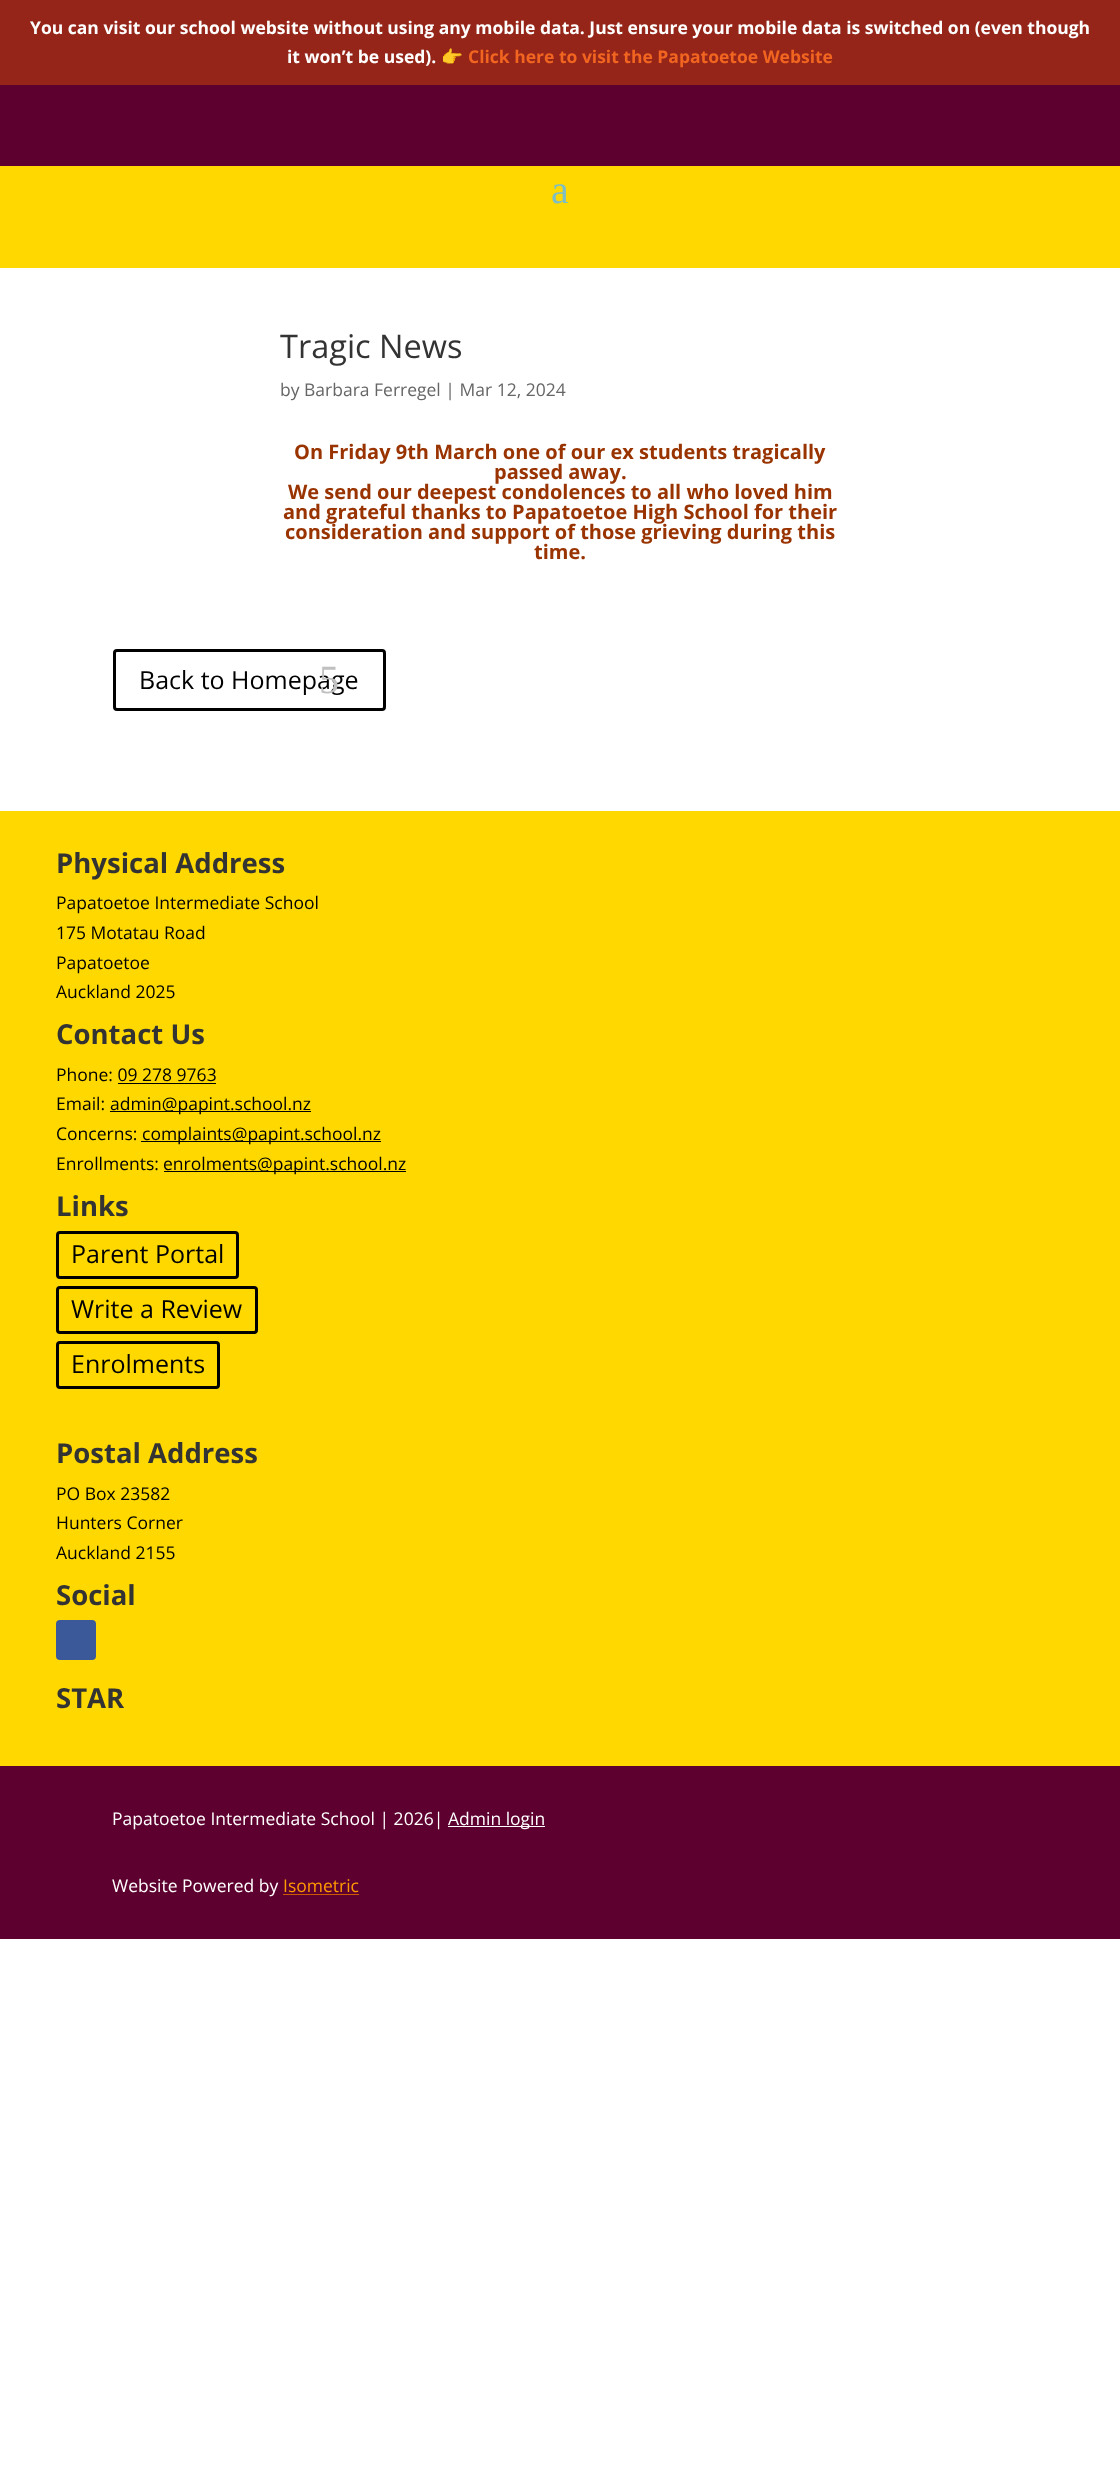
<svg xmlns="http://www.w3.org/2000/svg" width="1120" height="2479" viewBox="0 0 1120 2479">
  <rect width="100%" height="100%" fill="#ffffff"/>
  <rect x="0" y="0" width="1120" height="85" fill="#952518"/>
  <text x="30" y="34" font-family="Open Sans" font-size="17.5" font-weight="bold" fill="#ffffff">You can visit our school website without using any mobile data. Just ensure your mobile data is switched on (even though</text>
  <text x="287" y="63" font-family="Open Sans" font-size="17.5" font-weight="bold" fill="#ffffff">it won’t be used).</text>
  <text x="441" y="63" font-family="Noto Color Emoji" font-size="17.5" font-weight="bold" fill="#ffffff">👉</text>
  <text x="468" y="63" font-family="Open Sans" font-size="17.5" font-weight="bold" fill="#f16521">Click here to visit the Papatoetoe Website</text>
  <rect x="0" y="85" width="1120" height="81" fill="#5d002f"/>
  <rect x="0" y="166" width="1120" height="102" fill="#ffd800"/>
  <text x="551" y="203" font-family="Liberation Serif" font-size="40" fill="#7ebec5">a</text>
  <text x="280" y="358" font-family="Open Sans" font-size="32.5" fill="#333333">Tragic News</text>
  <text x="280" y="396" font-family="Open Sans" font-size="17.5" fill="#666666">by Barbara Ferregel | Mar 12, 2024</text>
  <text x="294" y="459" font-family="Open Sans" font-size="20" font-weight="bold" fill="#993300">On Friday 9th March one of our ex students tragically</text>
  <text x="494" y="479" font-family="Open Sans" font-size="20" font-weight="bold" fill="#993300">passed away.</text>
  <text x="288" y="499" font-family="Open Sans" font-size="20" font-weight="bold" fill="#993300">We send our deepest condolences to all who loved him</text>
  <text x="283" y="519" font-family="Open Sans" font-size="20" font-weight="bold" fill="#993300">and grateful thanks to Papatoetoe High School for their</text>
  <text x="285" y="539" font-family="Open Sans" font-size="20" font-weight="bold" fill="#993300">consideration and support of those grieving during this</text>
  <text x="534" y="559" font-family="Open Sans" font-size="20" font-weight="bold" fill="#993300">time.</text>
  <rect x="114.5" y="650.5" width="270" height="59" rx="2.5" fill="none" stroke="#000000" stroke-width="3"/>
  <text x="139" y="689" font-family="Open Sans" font-size="25" fill="#000000">Back to Homepage</text>
  <text x="319" y="693" font-family="Liberation Serif" font-size="40" fill="#c0c0c0">5</text>
  <rect x="0" y="811" width="1120" height="955" fill="#ffd800"/>
  <text x="56" y="873" font-family="Open Sans" font-size="27.5" font-weight="bold" fill="#333333">Physical Address</text>
  <text x="56" y="909" font-family="Open Sans" font-size="17.5" fill="#000000">Papatoetoe Intermediate School</text>
  <text x="56" y="939" font-family="Open Sans" font-size="17.5" fill="#000000">175 Motatau Road</text>
  <text x="56" y="969" font-family="Open Sans" font-size="17.5" fill="#000000">Papatoetoe</text>
  <text x="56" y="998" font-family="Open Sans" font-size="17.5" fill="#000000">Auckland 2025</text>
  <text x="56" y="1044" font-family="Open Sans" font-size="27.5" font-weight="bold" fill="#333333">Contact Us</text>
  <text x="56" y="1081" font-family="Open Sans" font-size="17.5" fill="#000000">Phone: 09 278 9763</text>
  <rect x="118" y="1083" width="98" height="1" fill="#000000"/>
  <text x="56" y="1110" font-family="Open Sans" font-size="17.5" fill="#000000">Email:</text>
  <rect x="110" y="1111" width="201" height="1" fill="#000000"/>
  <text x="110" y="1110" font-family="Open Sans" font-size="17.5" fill="#000000">admin@papint.school.nz</text>
  <text x="56" y="1140" font-family="Open Sans" font-size="17.5" fill="#000000">Concerns:</text>
  <rect x="141" y="1141" width="240" height="1" fill="#000000"/>
  <text x="142" y="1140" font-family="Open Sans" font-size="17.5" fill="#000000">complaints@papint.school.nz</text>
  <text x="56" y="1170" font-family="Open Sans" font-size="17.5" fill="#000000">Enrollments:</text>
  <rect x="164" y="1171" width="242" height="1" fill="#000000"/>
  <text x="163" y="1170" font-family="Open Sans" font-size="17.5" fill="#000000">enrolments@papint.school.nz</text>
  <text x="56" y="1216" font-family="Open Sans" font-size="27.5" font-weight="bold" fill="#333333">Links</text>
  <rect x="57.5" y="1232.5" width="180" height="45" rx="2.5" fill="none" stroke="#000000" stroke-width="3"/>
  <text x="71" y="1263" font-family="Open Sans" font-size="25" fill="#000000">Parent Portal</text>
  <rect x="57.5" y="1287.5" width="199" height="45" rx="2.5" fill="none" stroke="#000000" stroke-width="3"/>
  <text x="71" y="1318" font-family="Open Sans" font-size="25" fill="#000000">Write a Review</text>
  <rect x="57.5" y="1342.5" width="161" height="45" rx="2.5" fill="none" stroke="#000000" stroke-width="3"/>
  <text x="71" y="1373" font-family="Open Sans" font-size="25" fill="#000000">Enrolments</text>
  <text x="56" y="1463" font-family="Open Sans" font-size="27.5" font-weight="bold" fill="#333333">Postal Address</text>
  <text x="56" y="1500" font-family="Open Sans" font-size="17.5" fill="#000000">PO Box 23582</text>
  <text x="56" y="1529" font-family="Open Sans" font-size="17.5" fill="#000000">Hunters Corner</text>
  <text x="56" y="1559" font-family="Open Sans" font-size="17.5" fill="#000000">Auckland 2155</text>
  <text x="56" y="1605" font-family="Open Sans" font-size="27.5" font-weight="bold" fill="#333333">Social</text>
  <rect x="56" y="1620" width="40" height="40" rx="4" fill="#3b5998"/>
  <text x="56" y="1708" font-family="Open Sans" font-size="27.5" font-weight="bold" fill="#333333">STAR</text>
  <rect x="0" y="1766" width="1120" height="173" fill="#5d002f"/>
  <text x="112" y="1825" font-family="Open Sans" font-size="17.5" fill="#ffffff">Papatoetoe Intermediate School | 2026|</text>
  <rect x="448" y="1826" width="97" height="1" fill="#ffffff"/>
  <text x="448" y="1825" font-family="Open Sans" font-size="17.5" fill="#ffffff">Admin login</text>
  <text x="112" y="1892" font-family="Open Sans" font-size="17.5" fill="#ffffff">Website Powered by</text>
  <text x="283" y="1892" font-family="Open Sans" font-size="17.5" fill="#ff9900">Isometric</text>
  <rect x="283" y="1894" width="76" height="1" fill="#cc5800"/>
</svg>
